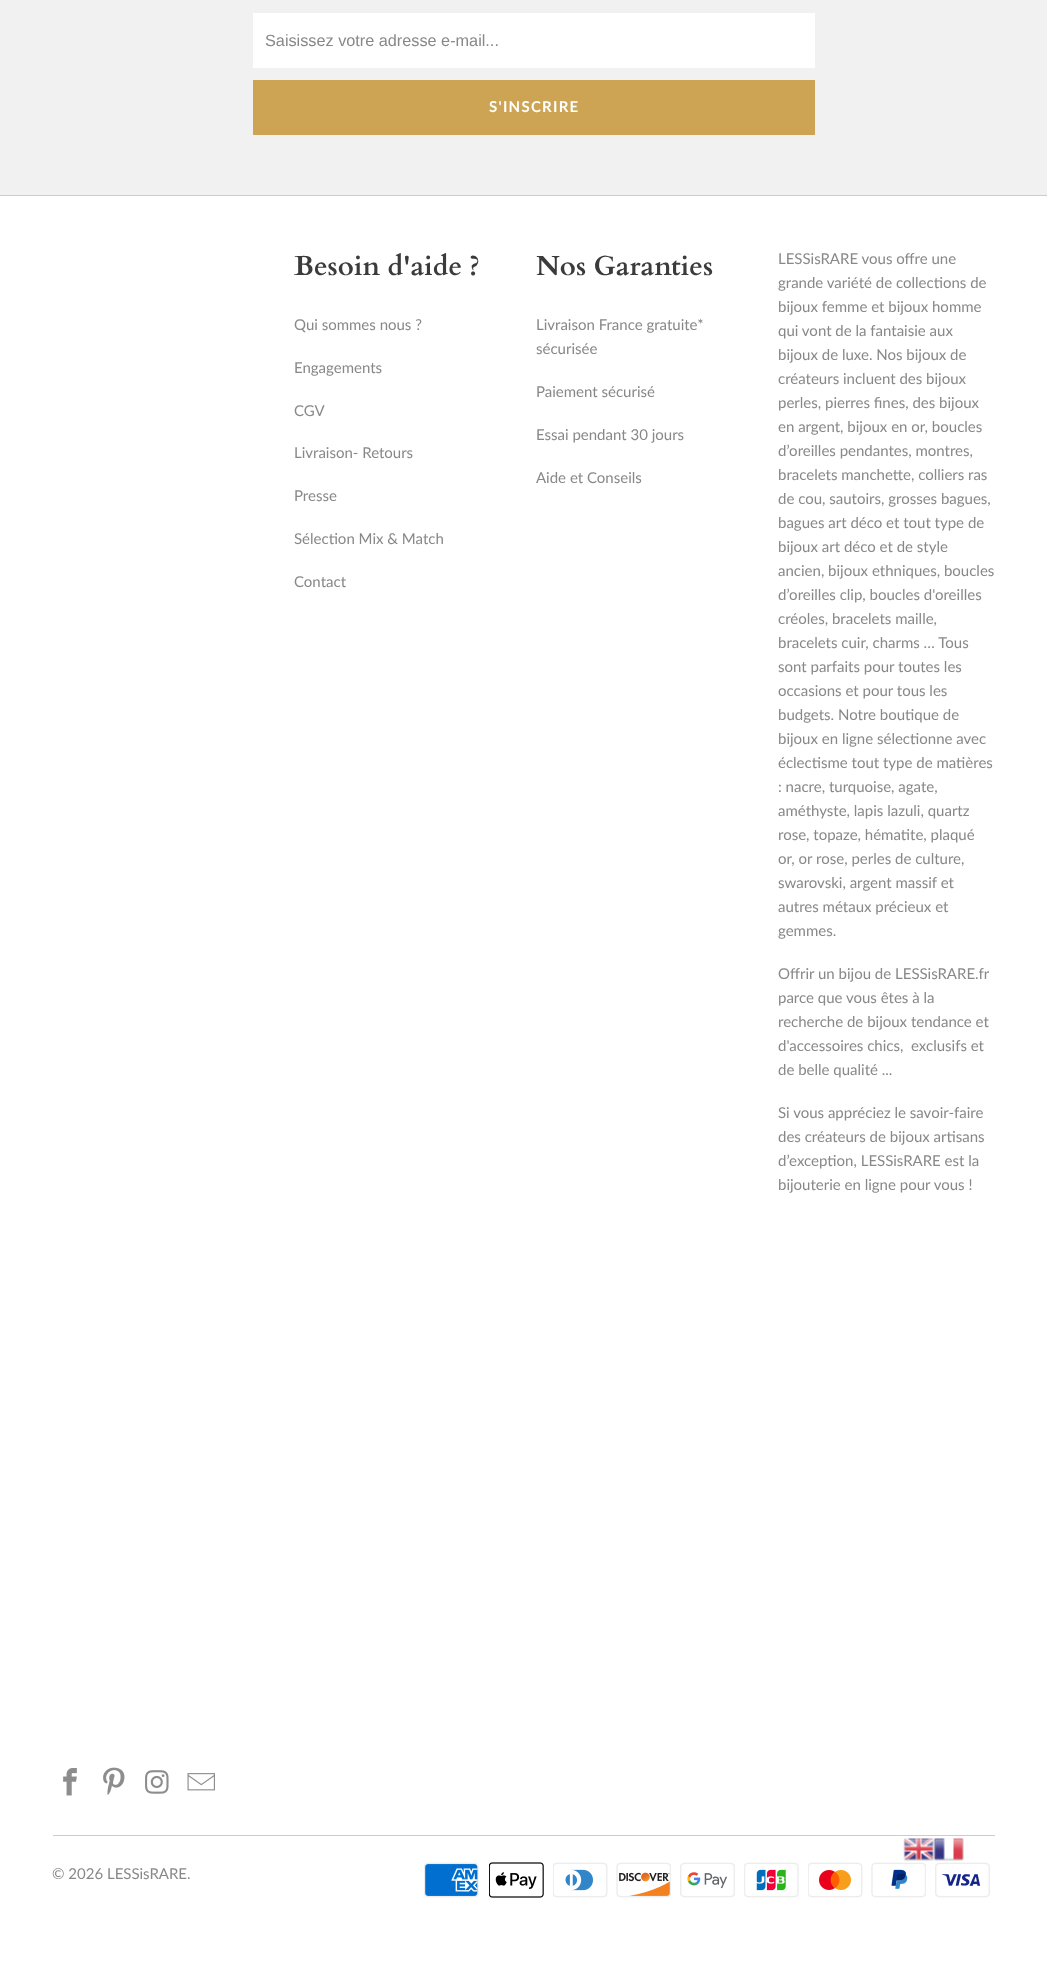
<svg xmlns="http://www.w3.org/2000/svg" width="1047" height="1961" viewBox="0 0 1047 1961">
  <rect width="100%" height="100%" fill="#ffffff"/>
  <rect x="0" y="0" width="1047" height="195" fill="#f2f1f1"/>
  <rect x="253" y="13" width="562" height="55" fill="#ffffff"/>
  <text x="265" y="46" font-family="Liberation Sans" font-size="16.25" fill="#888888">Saisissez votre adresse e-mail...</text>
  <rect x="253" y="80" width="562" height="55" fill="#cda454"/>
  <text x="489" y="112" font-family="Lato" font-size="15" font-weight="bold" letter-spacing="1.25" fill="#ffffff">S'INSCRIRE</text>
  <rect x="0" y="195" width="1047" height="1" fill="#cccccc"/>
  <text x="294" y="275" font-family="Cardo" font-size="27.5" font-weight="bold" fill="#3b3b3b">Besoin d'aide ?</text>
  <text x="294" y="330" font-family="Lato" font-size="15" fill="#888888">Qui sommes nous ?</text>
  <text x="294" y="373" font-family="Lato" font-size="15" fill="#888888">Engagements</text>
  <text x="294" y="416" font-family="Lato" font-size="15" fill="#888888">CGV</text>
  <text x="294" y="458" font-family="Lato" font-size="15" fill="#888888">Livraison- Retours</text>
  <text x="294" y="501" font-family="Lato" font-size="15" fill="#888888">Presse</text>
  <text x="294" y="544" font-family="Lato" font-size="15" fill="#888888">Sélection Mix &amp; Match</text>
  <text x="294" y="587" font-family="Lato" font-size="15" fill="#888888">Contact</text>
  <text x="536" y="275" font-family="Cardo" font-size="27.5" font-weight="bold" fill="#3b3b3b">Nos Garanties</text>
  <text x="536" y="330" font-family="Lato" font-size="15" fill="#888888">Livraison France gratuite*</text>
  <text x="536" y="354" font-family="Lato" font-size="15" fill="#888888">sécurisée</text>
  <text x="536" y="397" font-family="Lato" font-size="15" fill="#888888">Paiement sécurisé</text>
  <text x="536" y="440" font-family="Lato" font-size="15" fill="#888888">Essai pendant 30 jours</text>
  <text x="536" y="483" font-family="Lato" font-size="15" fill="#888888">Aide et Conseils</text>
  <text x="778" y="264" font-family="Lato" font-size="15" fill="#888888">LESSisRARE vous offre une</text>
  <text x="778" y="288" font-family="Lato" font-size="15" fill="#888888">grande variété de collections de</text>
  <text x="778" y="312" font-family="Lato" font-size="15" fill="#888888">bijoux femme et bijoux homme</text>
  <text x="778" y="336" font-family="Lato" font-size="15" fill="#888888">qui vont de la fantaisie aux</text>
  <text x="778" y="360" font-family="Lato" font-size="15" fill="#888888">bijoux de luxe. Nos bijoux de</text>
  <text x="778" y="384" font-family="Lato" font-size="15" fill="#888888">créateurs incluent des bijoux</text>
  <text x="778" y="408" font-family="Lato" font-size="15" fill="#888888">perles, pierres fines, des bijoux</text>
  <text x="778" y="432" font-family="Lato" font-size="15" fill="#888888">en argent, bijoux en or, boucles</text>
  <text x="778" y="456" font-family="Lato" font-size="15" fill="#888888">d’oreilles pendantes, montres,</text>
  <text x="778" y="480" font-family="Lato" font-size="15" fill="#888888">bracelets manchette, colliers ras</text>
  <text x="778" y="504" font-family="Lato" font-size="15" fill="#888888">de cou, sautoirs, grosses bagues,</text>
  <text x="778" y="528" font-family="Lato" font-size="15" fill="#888888">bagues art déco et tout type de</text>
  <text x="778" y="552" font-family="Lato" font-size="15" fill="#888888">bijoux art déco et de style</text>
  <text x="778" y="576" font-family="Lato" font-size="15" fill="#888888">ancien, bijoux ethniques, boucles</text>
  <text x="778" y="600" font-family="Lato" font-size="15" fill="#888888">d’oreilles clip, boucles d'oreilles</text>
  <text x="778" y="624" font-family="Lato" font-size="15" fill="#888888">créoles, bracelets maille,</text>
  <text x="778" y="648" font-family="Lato" font-size="15" fill="#888888">bracelets cuir, charms … Tous</text>
  <text x="778" y="672" font-family="Lato" font-size="15" fill="#888888">sont parfaits pour toutes les</text>
  <text x="778" y="696" font-family="Lato" font-size="15" fill="#888888">occasions et pour tous les</text>
  <text x="778" y="720" font-family="Lato" font-size="15" fill="#888888">budgets. Notre boutique de</text>
  <text x="778" y="744" font-family="Lato" font-size="15" fill="#888888">bijoux en ligne sélectionne avec</text>
  <text x="778" y="768" font-family="Lato" font-size="15" fill="#888888">éclectisme tout type de matières</text>
  <text x="778" y="792" font-family="Lato" font-size="15" fill="#888888">: nacre, turquoise, agate,</text>
  <text x="778" y="816" font-family="Lato" font-size="15" fill="#888888">améthyste, lapis lazuli, quartz</text>
  <text x="778" y="840" font-family="Lato" font-size="15" fill="#888888">rose, topaze, hématite, plaqué</text>
  <text x="778" y="864" font-family="Lato" font-size="15" fill="#888888">or, or rose, perles de culture,</text>
  <text x="778" y="888" font-family="Lato" font-size="15" fill="#888888">swarovski, argent massif et</text>
  <text x="778" y="912" font-family="Lato" font-size="15" fill="#888888">autres métaux précieux et</text>
  <text x="778" y="936" font-family="Lato" font-size="15" fill="#888888">gemmes.</text>
  <text x="778" y="979" font-family="Lato" font-size="15" fill="#888888">Offrir un bijou de LESSisRARE.fr</text>
  <text x="778" y="1003" font-family="Lato" font-size="15" fill="#888888">parce que vous êtes à la</text>
  <text x="778" y="1027" font-family="Lato" font-size="15" fill="#888888">recherche de bijoux tendance et</text>
  <text x="778" y="1051" font-family="Lato" font-size="15" fill="#888888" xml:space="preserve">d'accessoires chics,  exclusifs et</text>
  <text x="778" y="1075" font-family="Lato" font-size="15" fill="#888888">de belle qualité ...</text>
  <text x="778" y="1118" font-family="Lato" font-size="15" fill="#888888">Si vous appréciez le savoir-faire</text>
  <text x="778" y="1142" font-family="Lato" font-size="15" fill="#888888">des créateurs de bijoux artisans</text>
  <text x="778" y="1166" font-family="Lato" font-size="15" fill="#888888">d’exception, LESSisRARE est la</text>
  <text x="778" y="1190" font-family="Lato" font-size="15" fill="#888888">bijouterie en ligne pour vous !</text>
  <image x="63" y="1768" width="14" height="28" href="img1.png"/>
  <image x="103" y="1767" width="22" height="28" href="img2.png"/>
  <image x="145" y="1770" width="24" height="24" href="img3.png"/>
  <image x="187" y="1773" width="28" height="18" href="img4.png"/>
  <rect x="53" y="1835" width="942" height="1" fill="#cccccc"/>
  <text x="52" y="1879" font-family="Lato" font-size="15" fill="#888888">© 2026 LESSisRARE</text>
  <text x="187" y="1879" font-family="Lato" font-size="15" fill="#888888">.</text>
  <image x="424" y="1862" width="55" height="36" href="img5.png"/>
  <image x="489" y="1862" width="55" height="36" href="img6.png"/>
  <image x="553" y="1862" width="55" height="36" href="img7.png"/>
  <image x="616" y="1862" width="55" height="36" href="img8.png"/>
  <image x="680" y="1862" width="55" height="36" href="img9.png"/>
  <image x="744" y="1862" width="55" height="36" href="img10.png"/>
  <image x="808" y="1862" width="55" height="36" href="img11.png"/>
  <image x="871" y="1862" width="55" height="36" href="img12.png"/>
  <image x="935" y="1862" width="55" height="36" href="img13.png"/>
  <image x="903" y="1838" width="31" height="23" href="img14.png"/>
  <image x="933" y="1838" width="31" height="23" href="img15.png"/>
</svg>
